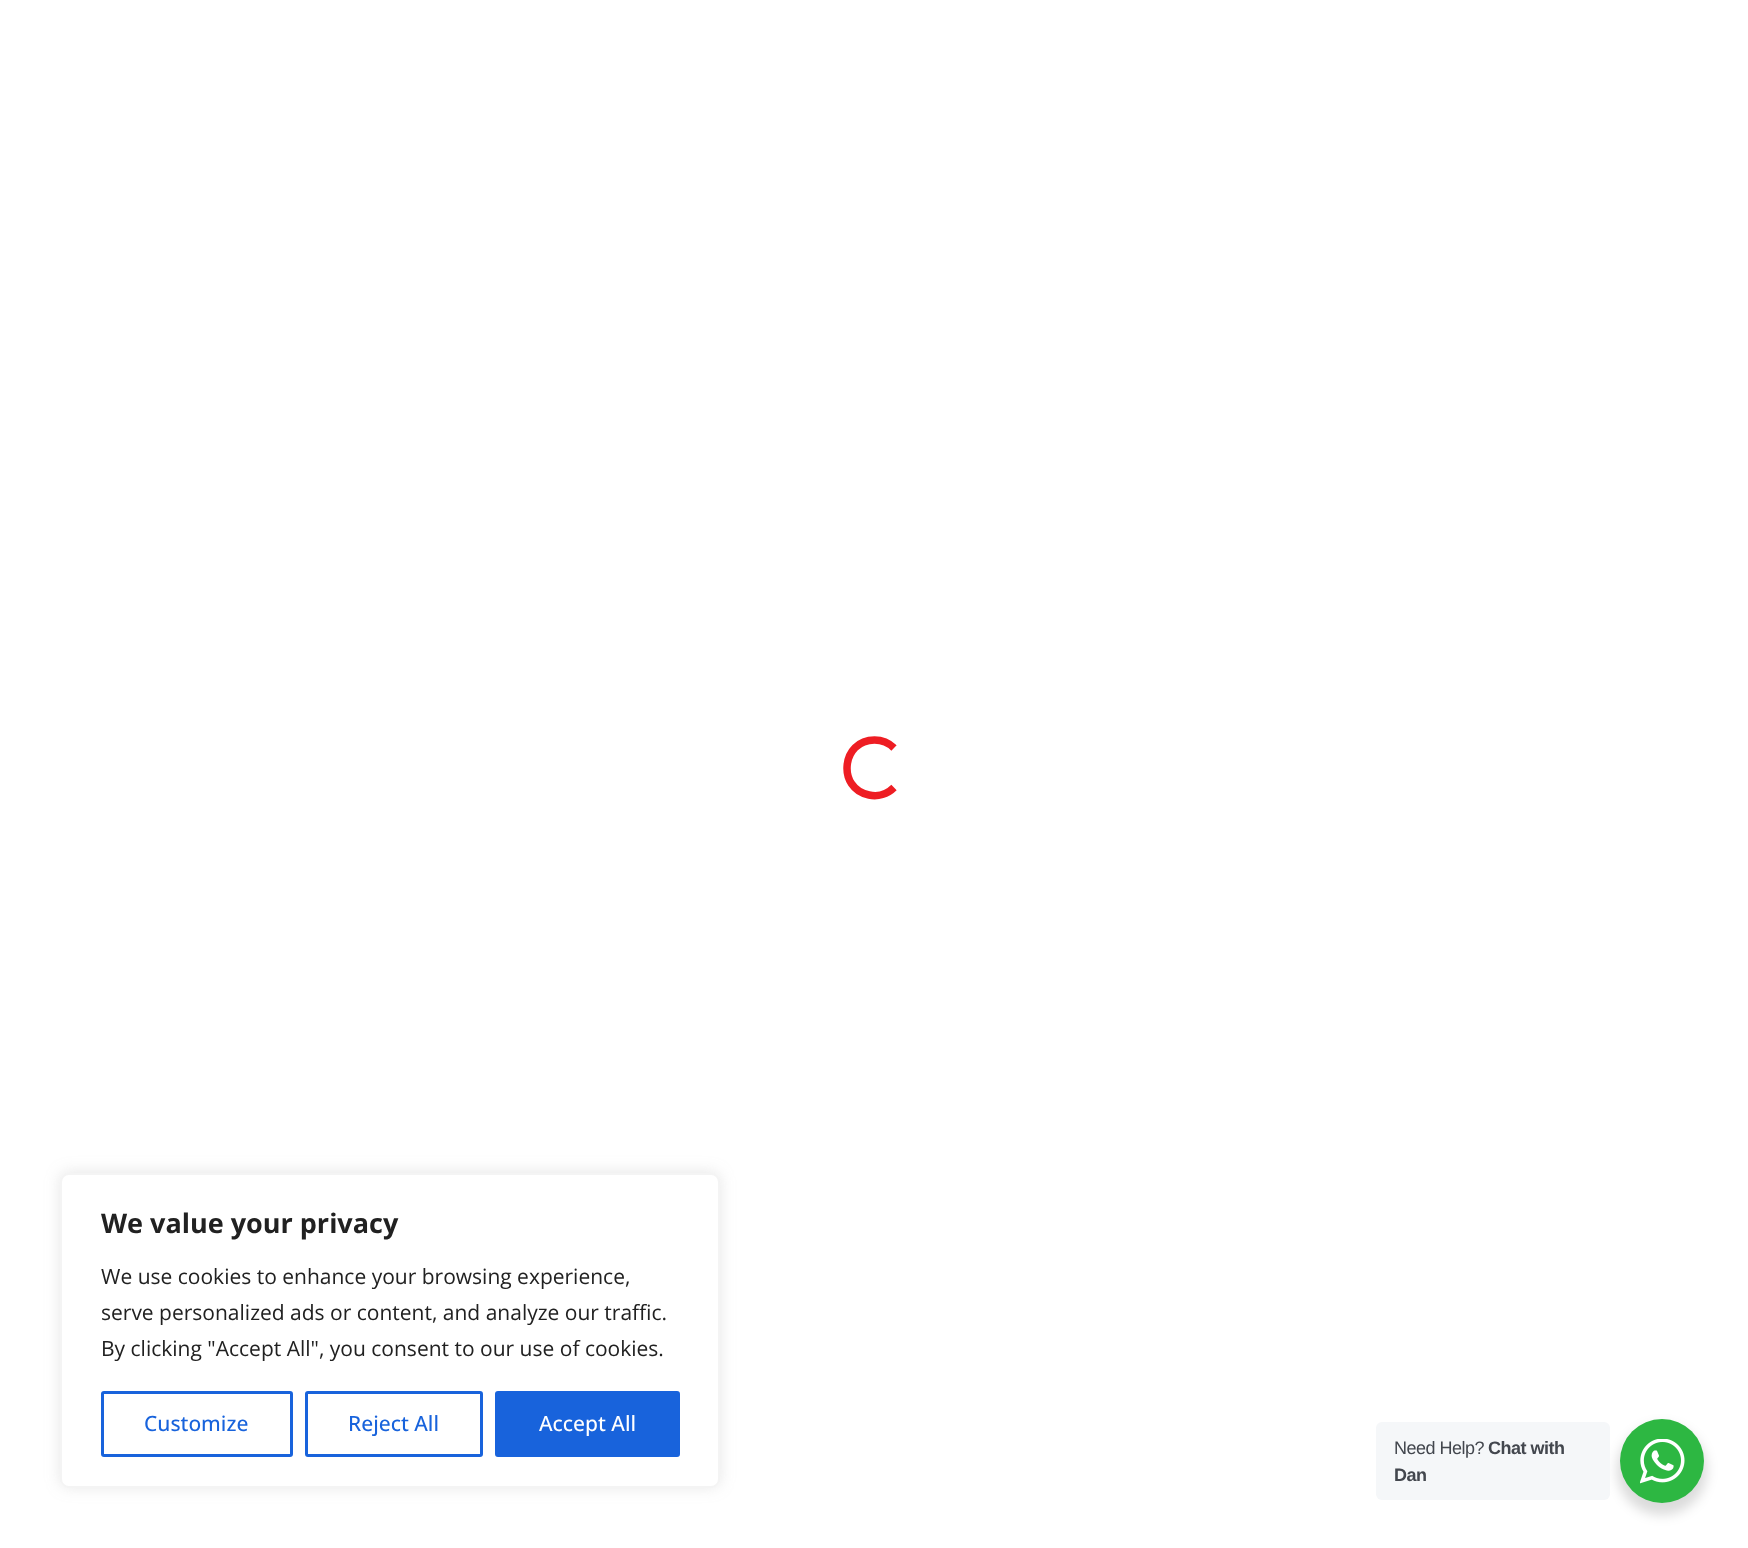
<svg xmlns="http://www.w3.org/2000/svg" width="1748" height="1548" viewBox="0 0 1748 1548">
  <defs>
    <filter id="blur1" x="-50%" y="-200%" width="200%" height="500%"><feGaussianBlur stdDeviation="7.5"/></filter>
    <filter id="blur2" x="-50%" y="-200%" width="200%" height="500%"><feGaussianBlur stdDeviation="6"/></filter>
  </defs>
  <rect width="100%" height="100%" fill="#ffffff"/>
  <path d="M894 787.5C887.5 794 878 797 869 795C836.5 788.5 841.5 740 874.5 740C882 740 889 743 894 748" fill="none" stroke="#ee1d23" stroke-width="7.5"/>
  <rect x="60" y="1172" width="660" height="315" rx="9" fill="#acabab" fill-opacity="0.3" filter="url(#blur1)"/>
  <rect x="61" y="1174" width="658" height="313" rx="8" fill="#ffffff" stroke="#f4f4f4" stroke-width="2"/>
  <text x="101" y="1233" font-family="Open Sans" font-size="27" font-weight="bold" fill="#212121">We value your privacy</text>
  <text x="101" y="1284" font-family="Open Sans" font-size="21" fill="#212121">We use cookies to enhance your browsing experience,</text>
  <text x="101" y="1320" font-family="Open Sans" font-size="21" fill="#212121">serve personalized ads or content, and analyze our traffic.</text>
  <text x="101" y="1356" font-family="Open Sans" font-size="21" fill="#212121">By clicking "Accept All", you consent to our use of cookies.</text>
  <rect x="102.5" y="1392.5" width="189" height="63" rx="1.5" fill="none" stroke="#1863dc" stroke-width="3"/>
  <text x="144" y="1431" font-family="Open Sans" font-size="21" font-weight="500" fill="#1863dc">Customize</text>
  <rect x="306.5" y="1392.5" width="175" height="63" rx="1.5" fill="none" stroke="#1863dc" stroke-width="3"/>
  <text x="348" y="1431" font-family="Open Sans" font-size="21" font-weight="500" fill="#1863dc">Reject All</text>
  <rect x="496.5" y="1392.5" width="182" height="63" rx="1.5" fill="#1863dc" stroke="#1863dc" stroke-width="3"/>
  <text x="539" y="1431" font-family="Open Sans" font-size="21" font-weight="500" fill="#ffffff">Accept All</text>
  <rect x="1617" y="1425" width="90" height="90" rx="45" fill="#000000" fill-opacity="0.14" filter="url(#blur2)"/>
  <rect x="1376" y="1422" width="234" height="78" rx="6" fill="#f5f7f9"/>
  <text x="1394" y="1454" font-family="Liberation Sans" font-size="18" letter-spacing="-0.5" fill="#43474e">Need Help?</text>
  <text x="1488" y="1454" font-family="Liberation Sans" font-size="18" font-weight="bold" letter-spacing="-0.5" fill="#43474e">Chat with</text>
  <text x="1394" y="1481" font-family="Liberation Sans" font-size="18" font-weight="bold" letter-spacing="-0.5" fill="#43474e">Dan</text>
  <circle cx="1662" cy="1461" r="42" fill="#2db742"/>
  <image x="1640" y="1439" width="45" height="45" href="img1.png"/>
</svg>
